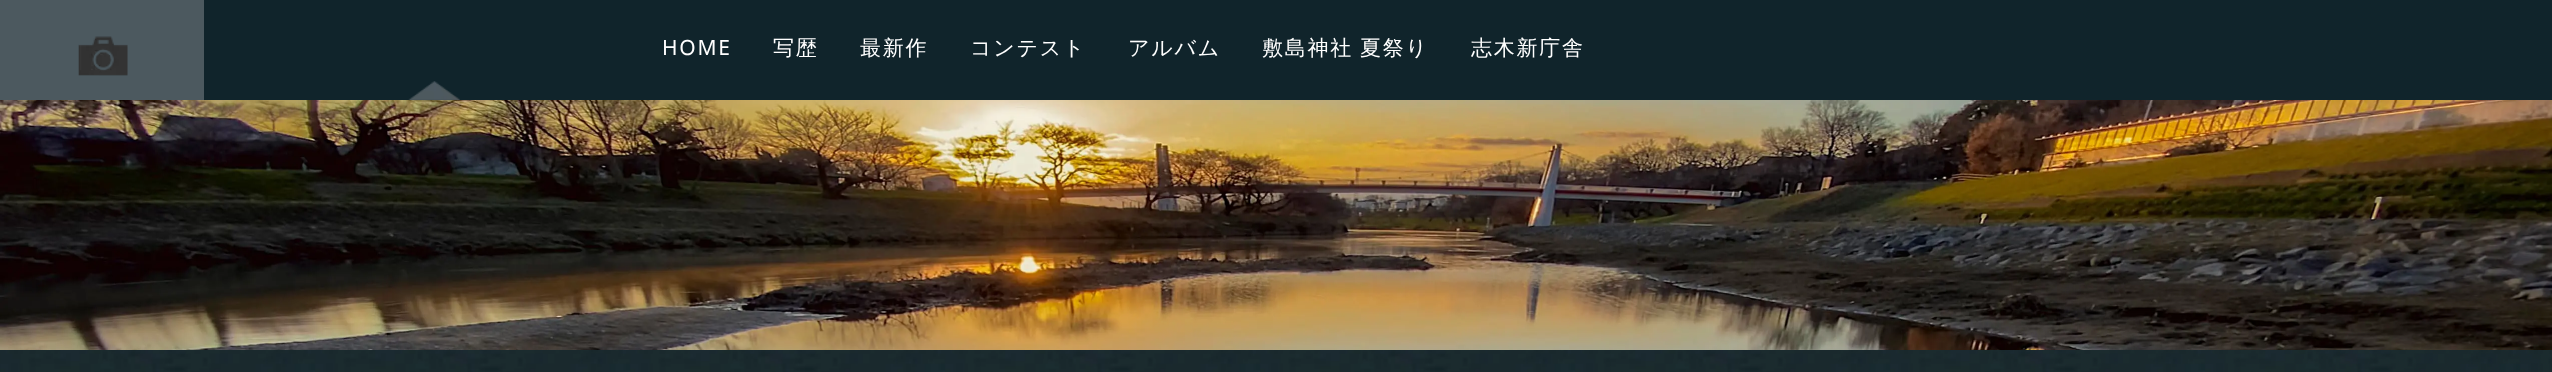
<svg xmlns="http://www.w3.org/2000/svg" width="2552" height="372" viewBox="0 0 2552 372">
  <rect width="100%" height="100%" fill="#ffffff"/>
  <image x="0" y="350" width="2552" height="22" href="img1.png"/>
  <rect x="204" y="0" width="2348" height="100" fill="#10242b"/>
  <rect x="0" y="0" width="204" height="100" fill="#4c595f"/>
  <image x="78" y="36" width="50" height="40" href="img2.png"/>
  <text x="662" y="55" font-family="Noto Sans" font-size="21" letter-spacing="1.75" fill="#ffffff">HOME</text>
  <text x="773" y="55" font-family="WenQuanYi Zen Hei" font-size="21" font-weight="500" letter-spacing="1.75" fill="#ffffff">写歴</text>
  <text x="860" y="55" font-family="WenQuanYi Zen Hei" font-size="21" font-weight="500" letter-spacing="1.75" fill="#ffffff">最新作</text>
  <text x="970" y="55" font-family="WenQuanYi Zen Hei" font-size="21" font-weight="500" letter-spacing="1.75" fill="#ffffff">コンテスト</text>
  <text x="1128" y="55" font-family="WenQuanYi Zen Hei" font-size="21" font-weight="500" letter-spacing="1.75" fill="#ffffff">アルバム</text>
  <text x="1262" y="55" word-spacing="-1" font-family="WenQuanYi Zen Hei" font-size="21" font-weight="500" letter-spacing="1.75" fill="#ffffff">敷島神社 夏祭り</text>
  <text x="1471" y="55" font-family="WenQuanYi Zen Hei" font-size="21" font-weight="500" letter-spacing="1.75" fill="#ffffff">志木新庁舎</text>
  <image x="0" y="100" width="2552" height="250" href="img4.png"/>
  <image x="408" y="81" width="52" height="20" href="img3.png"/>
</svg>
